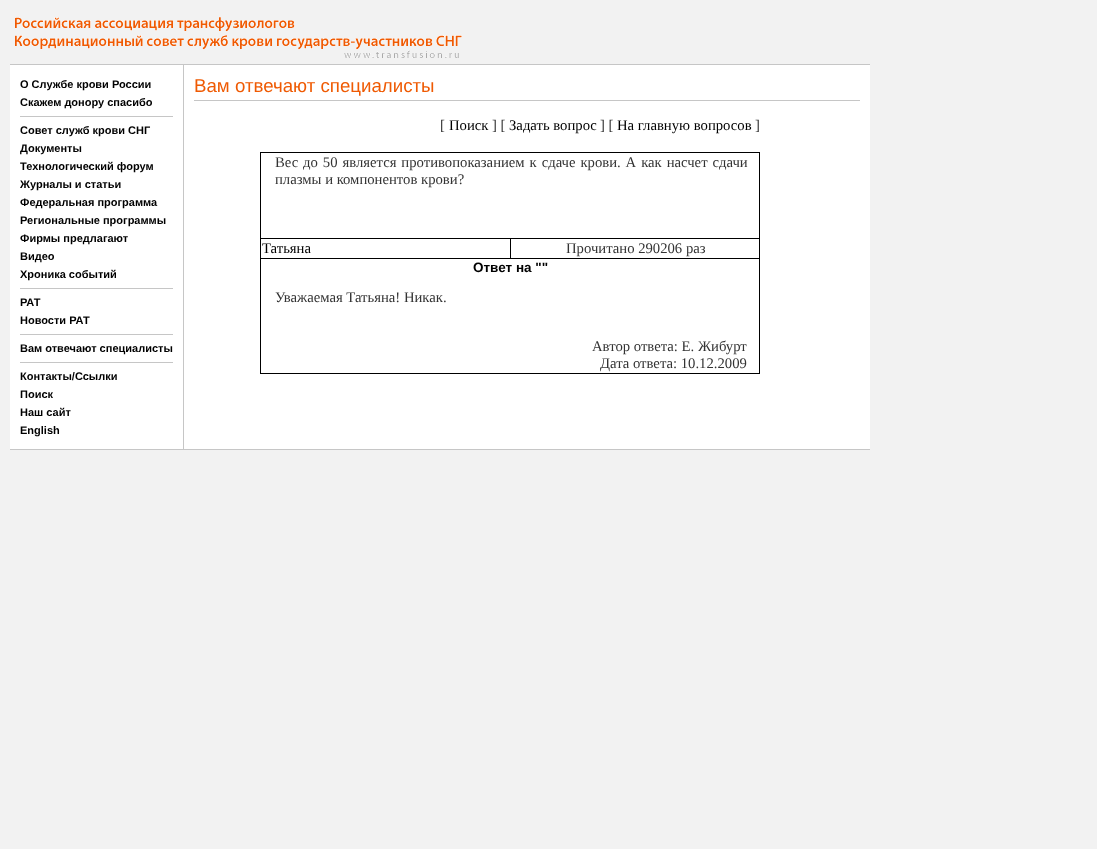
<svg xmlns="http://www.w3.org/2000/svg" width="1097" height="849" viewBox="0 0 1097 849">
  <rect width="100%" height="100%" fill="#f2f2f2"/>
  <rect x="10" y="65" width="860" height="384" fill="#ffffff"/>
  <image x="15" y="17" width="447" height="41" href="img1.png"/>
  <rect x="10" y="64" width="860" height="1" fill="#c6c6c6"/>
  <rect x="183" y="65" width="1" height="384" fill="#c6c6c6"/>
  <text x="20" y="88" font-family="Liberation Sans" font-size="11" font-weight="bold" fill="#000000">О Службе крови России</text>
  <text x="20" y="106" font-family="Liberation Sans" font-size="11" font-weight="bold" fill="#000000">Скажем донору спасибо</text>
  <rect x="20" y="116" width="153" height="1" fill="#c6c6c6"/>
  <text x="20" y="134" font-family="Liberation Sans" font-size="11" font-weight="bold" fill="#000000">Совет служб крови СНГ</text>
  <text x="20" y="152" font-family="Liberation Sans" font-size="11" font-weight="bold" fill="#000000">Документы</text>
  <text x="20" y="170" font-family="Liberation Sans" font-size="11" font-weight="bold" fill="#000000">Технологический форум</text>
  <text x="20" y="188" font-family="Liberation Sans" font-size="11" font-weight="bold" fill="#000000">Журналы и статьи</text>
  <text x="20" y="206" font-family="Liberation Sans" font-size="11" font-weight="bold" fill="#000000">Федеральная программа</text>
  <text x="20" y="224" font-family="Liberation Sans" font-size="11" font-weight="bold" fill="#000000">Региональные программы</text>
  <text x="20" y="242" font-family="Liberation Sans" font-size="11" font-weight="bold" fill="#000000">Фирмы предлагают</text>
  <text x="20" y="260" font-family="Liberation Sans" font-size="11" font-weight="bold" fill="#000000">Видео</text>
  <text x="20" y="278" font-family="Liberation Sans" font-size="11" font-weight="bold" fill="#000000">Хроника событий</text>
  <rect x="20" y="288" width="153" height="1" fill="#c6c6c6"/>
  <text x="20" y="306" font-family="Liberation Sans" font-size="11" font-weight="bold" fill="#000000">РАТ</text>
  <text x="20" y="324" font-family="Liberation Sans" font-size="11" font-weight="bold" fill="#000000">Новости РАТ</text>
  <rect x="20" y="334" width="153" height="1" fill="#c6c6c6"/>
  <text x="20" y="352" font-family="Liberation Sans" font-size="11" font-weight="bold" fill="#000000">Вам отвечают специалисты</text>
  <rect x="20" y="362" width="153" height="1" fill="#c6c6c6"/>
  <text x="20" y="380" font-family="Liberation Sans" font-size="11" font-weight="bold" fill="#000000">Контакты/Ссылки</text>
  <text x="20" y="398" font-family="Liberation Sans" font-size="11" font-weight="bold" fill="#000000">Поиск</text>
  <text x="20" y="416" font-family="Liberation Sans" font-size="11" font-weight="bold" fill="#000000">Наш сайт</text>
  <text x="20" y="434" font-family="Liberation Sans" font-size="11" font-weight="bold" fill="#000000">English</text>
  <text x="194" y="92" font-family="Liberation Sans" font-size="18.7" fill="#ef5a03">Вам отвечают специалисты</text>
  <rect x="194" y="100" width="666" height="1" fill="#c6c6c6"/>
  <text x="440" y="130" font-family="Liberation Serif" font-size="14.7" fill="#333333">[</text>
  <text x="449" y="130" font-family="Liberation Serif" font-size="14.7" fill="#000000">Поиск</text>
  <text x="492" y="130" font-family="Liberation Serif" font-size="14.7" fill="#333333">] [</text>
  <text x="509" y="130" font-family="Liberation Serif" font-size="14.7" fill="#000000">Задать вопрос</text>
  <text x="600" y="130" font-family="Liberation Serif" font-size="14.7" fill="#333333">] [</text>
  <text x="617" y="130" font-family="Liberation Serif" font-size="14.7" fill="#000000">На главную вопросов</text>
  <text x="755" y="130" font-family="Liberation Serif" font-size="14.7" fill="#333333">]</text>
  <rect x="260" y="152" width="500" height="222" fill="#000000"/>
  <rect x="261" y="153" width="498" height="85" fill="#ffffff"/>
  <text x="275" y="167" word-spacing="1.25" font-family="Liberation Serif" font-size="14.7" fill="#333333">Вес до 50 является противопоказанием к сдаче крови. А как насчет сдачи</text>
  <text x="275" y="184" font-family="Liberation Serif" font-size="14.7" fill="#333333">плазмы и компонентов крови?</text>
  <rect x="261" y="239" width="249" height="19" fill="#ffffff"/>
  <text x="262" y="253" font-family="Liberation Serif" font-size="14.7" fill="#000000">Татьяна</text>
  <rect x="511" y="239" width="248" height="19" fill="#ffffff"/>
  <text x="566" y="253" font-family="Liberation Serif" font-size="14.7" fill="#333333">Прочитано 290206 раз</text>
  <rect x="261" y="259" width="498" height="114" fill="#ffffff"/>
  <text x="473" y="272" font-family="Liberation Sans" font-size="13.5" font-weight="bold" fill="#000000">Ответ на ""</text>
  <text x="275" y="302" font-family="Liberation Serif" font-size="14.7" fill="#333333">Уважаемая Татьяна! Никак.</text>
  <text x="592" y="351" font-family="Liberation Serif" font-size="14.7" fill="#333333">Автор ответа: Е. Жибурт</text>
  <text x="600" y="368" font-family="Liberation Serif" font-size="14.7" fill="#333333">Дата ответа: 10.12.2009</text>
  <rect x="10" y="449" width="860" height="1" fill="#c6c6c6"/>
</svg>
